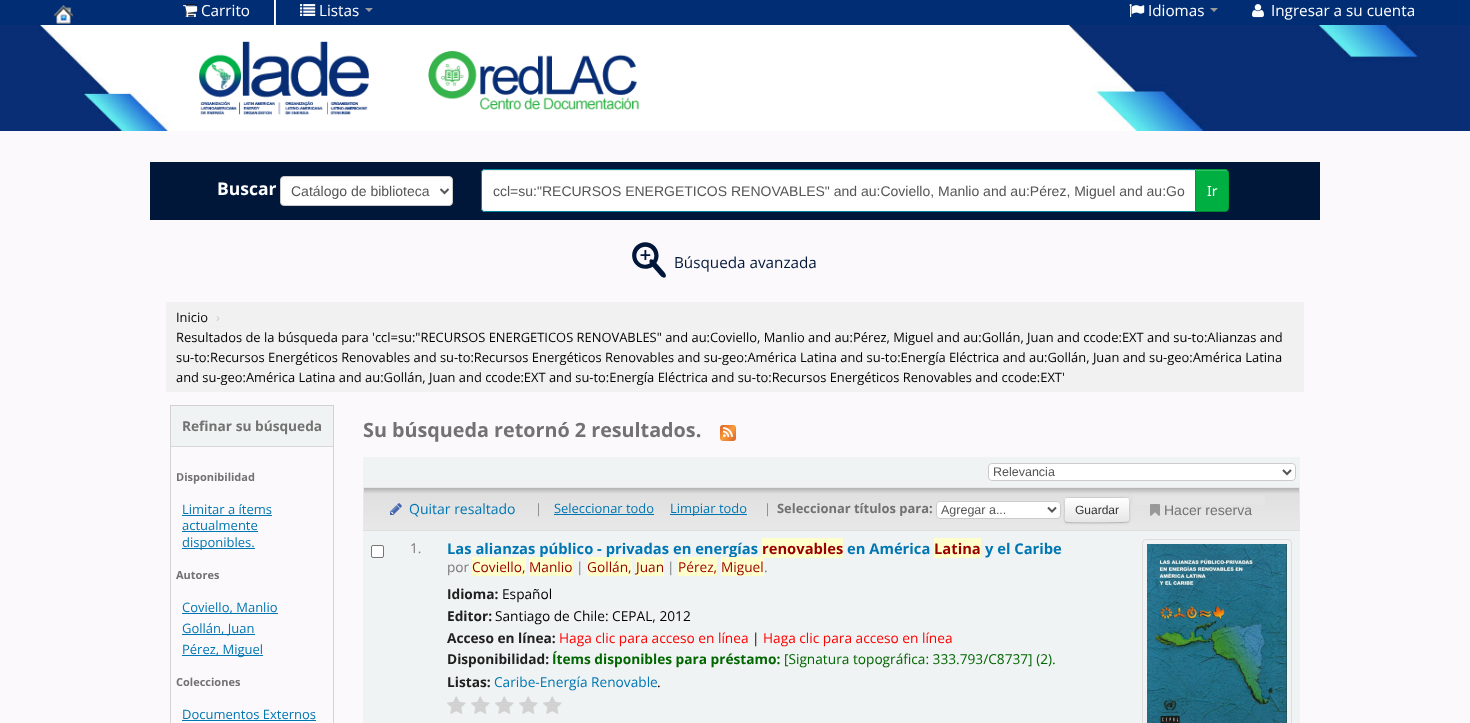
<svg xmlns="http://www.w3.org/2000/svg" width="1470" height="723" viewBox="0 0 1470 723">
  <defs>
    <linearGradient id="g1" gradientUnits="userSpaceOnUse" x1="720" y1="425" x2="736" y2="441"><stop offset="0" stop-color="#da5e2a"/><stop offset="0.5" stop-color="#fa9c39"/><stop offset="1" stop-color="#da5e2a"/></linearGradient>
    <linearGradient id="g2" gradientUnits="userSpaceOnUse" x1="832" y1="446" x2="832" y2="488"><stop offset="0" stop-color="#b2b2b2"/><stop offset="0.14" stop-color="#e0e0e0"/><stop offset="1" stop-color="#e8e8e8"/></linearGradient>
    <linearGradient id="g3" gradientUnits="userSpaceOnUse" x1="832" y1="488" x2="832" y2="530"><stop offset="0" stop-color="#b2b2b2"/><stop offset="0.14" stop-color="#e0e0e0"/><stop offset="1" stop-color="#e8e8e8"/></linearGradient>
    <linearGradient id="g4" gradientUnits="userSpaceOnUse" x1="832" y1="488" x2="832" y2="530"><stop offset="0" stop-color="#d4d4d4"/><stop offset="0.14" stop-color="#e4e4e4"/><stop offset="1" stop-color="#e7e7e7"/></linearGradient>
    <filter id="blur1" x="-50%" y="-200%" width="200%" height="500%"><feGaussianBlur stdDeviation="1"/></filter>
    <clipPath id="clip1"><rect x="1064" y="497" width="66" height="26" rx="3"/></clipPath>
    <linearGradient id="g5" gradientUnits="userSpaceOnUse" x1="1097" y1="498" x2="1097" y2="522"><stop offset="0" stop-color="#ffffff"/><stop offset="1" stop-color="#e6e6e6"/></linearGradient>
  </defs>
  <rect width="100%" height="100%" fill="#fcf9fc"/>
  <rect x="0" y="0" width="1470" height="25" fill="#002d73"/>
  <image x="54" y="5" width="19" height="19" href="img1.png"/>
  <image x="185" y="4" width="11" height="13" href="img2.png"/>
  <image x="183" y="5" width="15" height="13" href="img3.png"/>
  <text x="201" y="16" font-family="Open Sans" font-size="15.25" fill="#ffffff">Carrito</text>
  <rect x="275" y="0" width="1" height="25" fill="#eeeeee"/>
  <rect x="274" y="0" width="1" height="25" fill="#ffffff"/>
  <image x="300" y="4" width="16" height="12" href="img4.png"/>
  <text x="319" y="16" font-family="Open Sans" font-size="15.25" fill="#ffffff">Listas</text>
  <path d="M365 8H373L369 12Z" fill="#999999"/>
  <image x="1129" y="4" width="16" height="14" href="img5.png"/>
  <text x="1148" y="16" font-family="Open Sans" font-size="15.25" fill="#ffffff">Idiomas</text>
  <path d="M1210 8H1218L1214 12Z" fill="#999999"/>
  <image x="1252" y="4" width="12" height="14" href="img6.png"/>
  <text x="1271" y="16" font-family="Open Sans" font-size="15.25" fill="#ffffff">Ingresar a su cuenta</text>
  <rect x="169" y="25" width="900" height="106" fill="#ffffff"/>
  <image x="0" y="25" width="169" height="106" href="img7.png"/>
  <image x="199" y="41" width="170" height="74" href="img8.png"/>
  <image x="428" y="51" width="211" height="59" href="img9.png"/>
  <image x="1069" y="25" width="401" height="106" href="img10.png"/>
  <rect x="150" y="162" width="1170" height="58" fill="#00173a"/>
  <text x="217" y="195" font-family="Open Sans" font-size="17.5" font-weight="bold" fill="#ffffff">Buscar</text>
  <rect x="280.5" y="176.5" width="172" height="29" rx="3.5" fill="#ffffff" stroke="#cccccc"/>
  <path d="M440.5 189L444.5 193L448.5 189" fill="none" stroke="#555555" stroke-width="2"/>
  <text x="291" y="196" font-family="Liberation Sans" font-size="14" fill="#555555">Catálogo de biblioteca</text>
  <path d="M1195 169H1225C1227 169 1229 171 1229 173V208C1229 210 1227 212 1225 212H1195Z" fill="#00af41"/>
  <path d="M1196 171H1225C1227 171 1228 172 1228 174V173C1228 171.5 1226.5 170 1225 170H1196Z" fill="#33bf67"/>
  <path d="M1195 169L1196 170H1225C1226 170 1227 170 1227 171L1228 170C1227 169.5 1226 169 1225 169Z" fill="#000000" fill-opacity="0.1"/>
  <path d="M1229 208V173C1229 172 1228 171 1228 170L1227 171C1229 172 1229 209 1227 210L1228 211Z" fill="#000000" fill-opacity="0.1"/>
  <path d="M1225 212C1226 212 1227 211.5 1228 211L1227 210C1227 211 1226 211 1225 211H1196L1195 212Z" fill="#000000" fill-opacity="0.25"/>
  <path d="M485 169H1196V212H485C483 212 481 210 481 208V173C481 171 483 169 485 169Z" fill="#ffffff"/>
  <path d="M485 171H1195V170H485C483 170 482 172 482 174C482 172 483 171 485 171Z" fill="#ececec"/>
  <path d="M485 169.5H1195.5V211.5H485C483 211.5 481.5 210 481.5 208V173C481.5 171 483 169.5 485 169.5Z" fill="none" stroke="#00859a"/>
  <text x="493" y="196" font-family="Liberation Sans" font-size="14" fill="#555555">ccl=su:"RECURSOS ENERGETICOS RENOVABLES" and au:Coviello, Manlio and au:Pérez, Miguel and au:Go</text>
  <text x="1207" y="196" font-family="Noto Sans" font-size="14" fill="#ffffff">Ir</text>
  <image x="632" y="242" width="34" height="36" href="img11.png"/>
  <text x="674" y="268" font-family="Open Sans" font-size="15.25" fill="#00173a">Búsqueda avanzada</text>
  <rect x="166" y="302" width="1138" height="90" fill="#f1f1f1"/>
  <text x="176" y="322" font-family="Open Sans" font-size="12.92" fill="#000000">Inicio</text>
  <text x="216" y="322" font-family="Open Sans" font-size="12.92" fill="#cccccc">›</text>
  <rect x="211" y="326" width="14" height="1" fill="#eeeeee"/>
  <text x="176" y="342" font-family="Open Sans" font-size="12.92" fill="#000000">Resultados de la búsqueda para 'ccl=su:"RECURSOS ENERGETICOS RENOVABLES" and au:Coviello, Manlio and au:Pérez, Miguel and au:Gollán, Juan and ccode:EXT and su-to:Alianzas and</text>
  <text x="176" y="362" font-family="Open Sans" font-size="12.92" fill="#000000">su-to:Recursos Energéticos Renovables and su-to:Recursos Energéticos Renovables and su-geo:América Latina and su-to:Energía Eléctrica and au:Gollán, Juan and su-geo:América Latina</text>
  <text x="176" y="382" font-family="Open Sans" font-size="12.92" fill="#000000">and su-geo:América Latina and au:Gollán, Juan and ccode:EXT and su-to:Energía Eléctrica and su-to:Recursos Energéticos Renovables and ccode:EXT'</text>
  <rect x="170.5" y="405.5" width="163" height="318" fill="none" stroke="#d2d2cf"/>
  <rect x="171" y="406" width="162" height="40" fill="#f0f3f3"/>
  <rect x="171" y="446" width="162" height="1" fill="#d8d8d8"/>
  <text x="182" y="431" font-family="Open Sans" font-size="13.7" font-weight="bold" fill="#727272">Refinar su búsqueda</text>
  <text x="176" y="481" font-family="Open Sans" font-size="11" font-weight="bold" fill="#727272">Disponibilidad</text>
  <text x="182" y="514" font-family="Open Sans" font-size="13" fill="#0076b2">Limitar a ítems</text>
  <rect x="182" y="515" width="90" height="1" fill="#0076b2"/>
  <text x="182" y="530" font-family="Open Sans" font-size="13" fill="#0076b2">actualmente</text>
  <rect x="182" y="531" width="76" height="1" fill="#0076b2"/>
  <rect x="182" y="548" width="73" height="1" fill="#0076b2"/>
  <text x="182" y="547" font-family="Open Sans" font-size="13" fill="#0076b2">disponibles.</text>
  <text x="176" y="579" font-family="Open Sans" font-size="11" font-weight="bold" fill="#727272">Autores</text>
  <rect x="182" y="613" width="96" height="1" fill="#0076b2"/>
  <text x="182" y="612" font-family="Open Sans" font-size="13" fill="#0076b2">Coviello, Manlio</text>
  <rect x="182" y="634" width="73" height="1" fill="#0076b2"/>
  <text x="182" y="633" font-family="Open Sans" font-size="13" fill="#0076b2">Gollán, Juan</text>
  <rect x="182" y="655" width="81" height="1" fill="#0076b2"/>
  <text x="182" y="654" font-family="Open Sans" font-size="13" fill="#0076b2">Pérez, Miguel</text>
  <text x="176" y="686" font-family="Open Sans" font-size="11" font-weight="bold" fill="#727272">Colecciones</text>
  <text x="182" y="719" font-family="Open Sans" font-size="13" fill="#0076b2">Documentos Externos</text>
  <rect x="182" y="720" width="134" height="1" fill="#0076b2"/>
  <text x="363" y="437" font-family="Open Sans" font-size="19.75" font-weight="bold" fill="#727272">Su búsqueda retornó 2 resultados.</text>
  <rect x="720" y="425" width="16" height="16" rx="3" fill="url(#g1)"/>
  <image x="723" y="427" width="10" height="10" href="img12.png"/>
  <rect x="363" y="457" width="937" height="30" fill="#f0f3f3"/>
  <rect x="988.5" y="463.5" width="307" height="17" rx="3.5" fill="#ffffff" stroke="#cccccc"/>
  <path d="M1283 470L1287 474L1291 470" fill="none" stroke="#555555" stroke-width="2"/>
  <text x="993" y="476" font-family="Liberation Sans" font-size="12.5" fill="#555555">Relevancia</text>
  <rect x="363" y="487" width="937" height="1" fill="url(#g2)"/>
  <rect x="364" y="488" width="935" height="42" fill="url(#g3)"/>
  <rect x="1133" y="495" width="132" height="10" fill="url(#g4)"/>
  <rect x="1299" y="487" width="1" height="43" fill="#e8e8e8"/>
  <rect x="363" y="487" width="1" height="43" fill="#e8e8e8"/>
  <image x="390" y="503" width="12" height="12" href="img13.png"/>
  <text x="409" y="514" font-family="Open Sans" font-size="14" fill="#0076b2">Quitar resaltado</text>
  <text x="535" y="513" font-family="Open Sans" font-size="12.92" fill="#888888">|</text>
  <text x="554" y="513" font-family="Open Sans" font-size="12.92" fill="#0076b2">Seleccionar todo</text>
  <rect x="554" y="514" width="100" height="1" fill="#0076b2"/>
  <rect x="670" y="514" width="77" height="1" fill="#0076b2"/>
  <text x="670" y="513" font-family="Open Sans" font-size="12.92" fill="#0076b2">Limpiar todo</text>
  <text x="764" y="513" font-family="Open Sans" font-size="12.92" fill="#888888">|</text>
  <text x="777" y="513" font-family="Open Sans" font-size="12.92" font-weight="bold" fill="#727272">Seleccionar títulos para:</text>
  <rect x="936.5" y="501.5" width="124" height="17" rx="3.5" fill="#ffffff" stroke="#cccccc"/>
  <path d="M1048 507.5L1052 511.5L1056 507.5" fill="none" stroke="#555555" stroke-width="2"/>
  <text x="941" y="514" font-family="Liberation Sans" font-size="12.5" fill="#555555">Agregar a...</text>
  <rect x="1064" y="498" width="66" height="26" rx="3" fill="#000000" fill-opacity="0.05" filter="url(#blur1)"/>
  <rect x="1064" y="497" width="66" height="26" rx="3" fill="#f5f5f5"/>
  <g clip-path="url(#clip1)">
    <rect x="1064" y="498" width="66" height="24" fill="url(#g5)"/>
  </g>
  <path d="M1129 522H1128.5C1127.5 523 1072 523 1067 522.5L1065 522" fill="none" stroke="#b3b3b3"/>
  <path d="M1065 522C1063.5 520 1064.5 512.5 1064.5 510C1064.5 495.5 1062 497.5 1077 497.5H1117C1132 497.5 1129.5 495.5 1129.5 510C1129.5 512.5 1130.5 520 1129 522" fill="none" stroke="#cccccc"/>
  <text x="1075" y="514" font-family="Liberation Sans" font-size="12" fill="#333333">Guardar</text>
  <image x="1150" y="504" width="10" height="12" href="img14.png"/>
  <text x="1164" y="515" font-family="Liberation Sans" font-size="14" fill="#727272">Hacer reserva</text>
  <rect x="363" y="531" width="937" height="192" fill="#f0f3f3"/>
  <rect x="371.5" y="545.5" width="12" height="12" rx="1.5" fill="#ffffff" stroke="#767676"/>
  <text x="410" y="553" font-family="Open Sans" font-size="13.7" fill="#7a7a7a">1.</text>
  <rect x="363" y="530" width="937" height="1" fill="#dddddd"/>
  <text x="447" y="554" font-family="Open Sans" font-size="14.75" font-weight="bold" fill="#0076b2">Las alianzas público - privadas en energías</text>
  <rect x="762" y="538" width="81" height="20" fill="#ffffcc"/>
  <text x="762" y="554" font-family="Open Sans" font-size="14.75" font-weight="bold" fill="#990000">renovables</text>
  <text x="847" y="554" font-family="Open Sans" font-size="14.75" font-weight="bold" fill="#0076b2">en América</text>
  <rect x="934" y="538" width="47" height="20" fill="#ffffcc"/>
  <text x="934" y="554" font-family="Open Sans" font-size="14.75" font-weight="bold" fill="#990000">Latina</text>
  <text x="985" y="554" font-family="Open Sans" font-size="14.75" font-weight="bold" fill="#0076b2">y el Caribe</text>
  <text x="447" y="572" font-family="Open Sans" font-size="13.7" fill="#7a7a7a">por</text>
  <rect x="472" y="557" width="54" height="19" fill="#ffffcc"/>
  <text x="472" y="572" font-family="Open Sans" font-size="13.7" fill="#990000">Coviello,</text>
  <rect x="529" y="557" width="44" height="19" fill="#ffffcc"/>
  <text x="529" y="572" font-family="Open Sans" font-size="13.7" fill="#990000">Manlio</text>
  <text x="576" y="572" font-family="Open Sans" font-size="13.7" fill="#7a7a7a">|</text>
  <rect x="587" y="557" width="45" height="19" fill="#ffffcc"/>
  <text x="587" y="572" font-family="Open Sans" font-size="13.7" fill="#990000">Gollán,</text>
  <rect x="636" y="557" width="28" height="19" fill="#ffffcc"/>
  <text x="636" y="572" font-family="Open Sans" font-size="13.7" fill="#990000">Juan</text>
  <text x="667" y="572" font-family="Open Sans" font-size="13.7" fill="#7a7a7a">|</text>
  <rect x="678" y="557" width="39" height="19" fill="#ffffcc"/>
  <text x="678" y="572" font-family="Open Sans" font-size="13.7" fill="#990000">Pérez,</text>
  <rect x="721" y="557" width="43" height="19" fill="#ffffcc"/>
  <text x="721" y="572" font-family="Open Sans" font-size="13.7" fill="#990000">Miguel</text>
  <text x="764" y="572" font-family="Open Sans" font-size="13.7" fill="#7a7a7a">.</text>
  <text x="447" y="599" font-family="Open Sans" font-size="13.7" font-weight="bold" fill="#202020">Idioma:</text>
  <text x="502" y="599" font-family="Open Sans" font-size="13.7" fill="#000000">Español</text>
  <text x="447" y="621" font-family="Open Sans" font-size="13.7" font-weight="bold" fill="#202020">Editor:</text>
  <text x="495" y="621" font-family="Open Sans" font-size="13.7" fill="#000000">Santiago de Chile: CEPAL, 2012</text>
  <text x="447" y="643" font-family="Open Sans" font-size="13.7" font-weight="bold" fill="#202020">Acceso en línea:</text>
  <text x="559" y="643" font-family="Open Sans" font-size="13.7" fill="#ff0000">Haga clic para acceso en línea</text>
  <text x="752" y="643" font-family="Open Sans" font-size="13.7" fill="#000000">|</text>
  <text x="763" y="643" font-family="Open Sans" font-size="13.7" fill="#ff0000">Haga clic para acceso en línea</text>
  <text x="447" y="664" font-family="Open Sans" font-size="13.7" font-weight="bold" fill="#202020">Disponibilidad:</text>
  <text x="552" y="664" font-family="Open Sans" font-size="13.7" font-weight="bold" fill="#006600">Ítems disponibles para préstamo:</text>
  <text x="784" y="664" font-family="Open Sans" font-size="13.7" fill="#006600">[Signatura topográfica: 333.793/C8737] (2).</text>
  <text x="447" y="687" font-family="Open Sans" font-size="13.7" font-weight="bold" fill="#202020">Listas:</text>
  <text x="494" y="687" font-family="Open Sans" font-size="13.7" fill="#0076b2">Caribe-Energía Renovable</text>
  <text x="657" y="687" font-family="Open Sans" font-size="13.7" fill="#000000">.</text>
  <image x="447" y="696" width="19" height="18" href="img15.png"/>
  <image x="471" y="696" width="19" height="18" href="img15.png"/>
  <image x="495" y="696" width="19" height="18" href="img15.png"/>
  <image x="519" y="696" width="19" height="18" href="img15.png"/>
  <image x="543" y="696" width="19" height="18" href="img15.png"/>
  <rect x="1142.5" y="539.5" width="149" height="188" rx="3.5" fill="none" stroke="#dddddd"/>
  <image x="1147" y="544" width="140" height="179" href="img16.png"/>
</svg>
